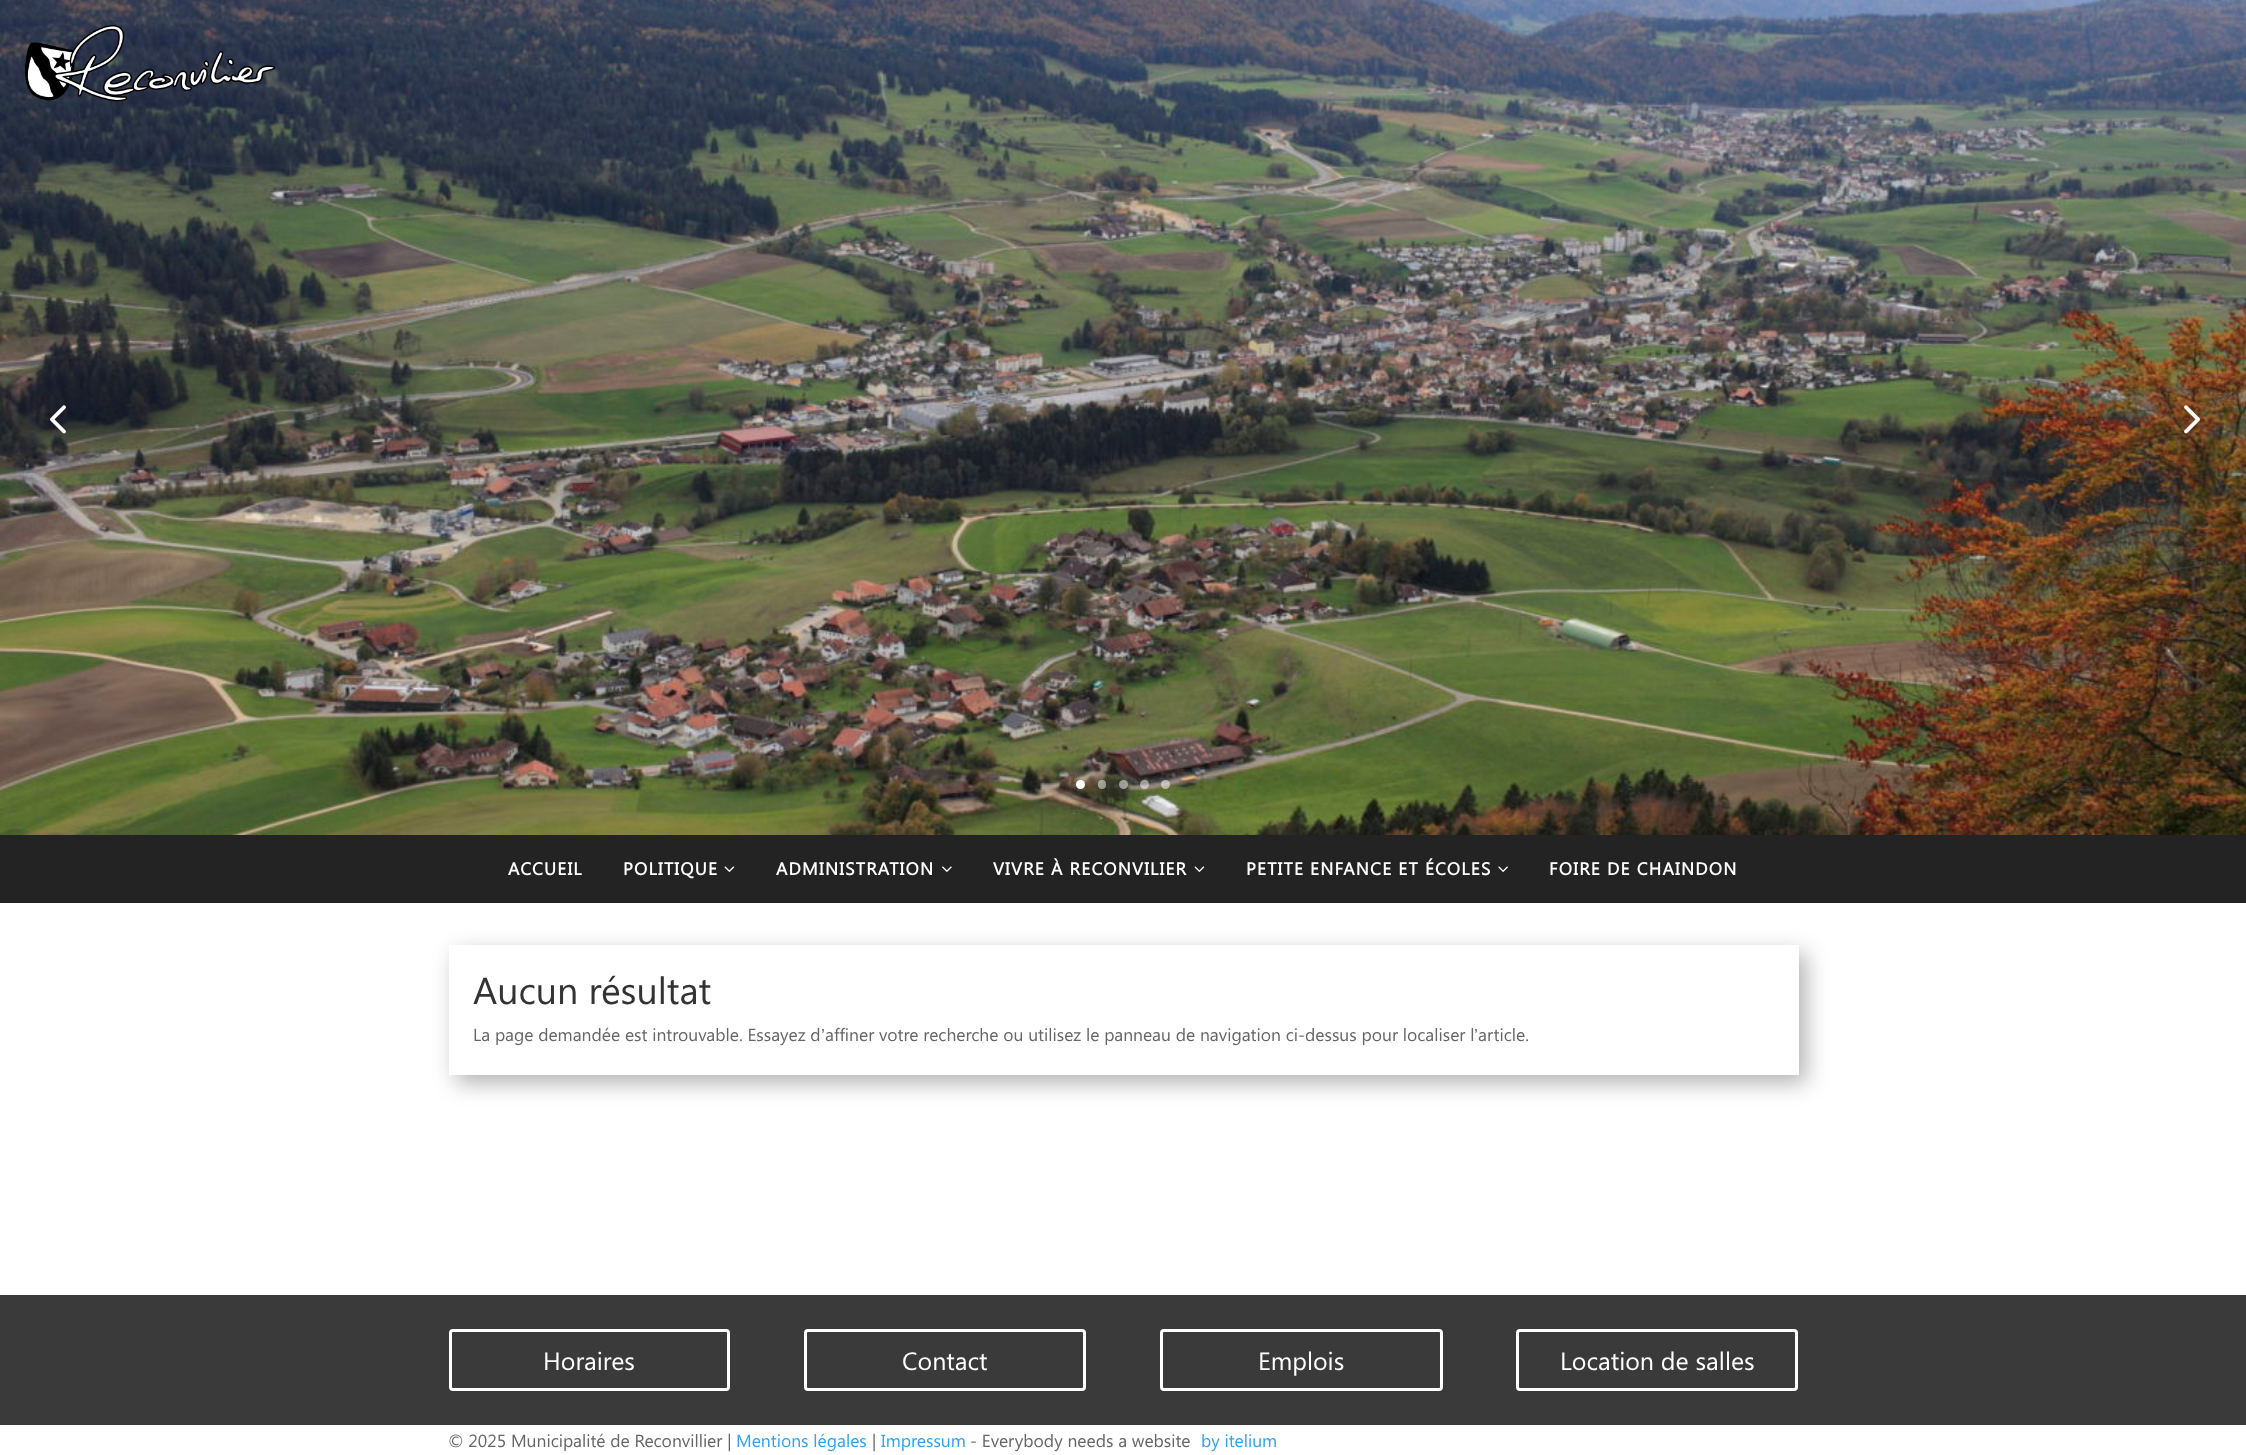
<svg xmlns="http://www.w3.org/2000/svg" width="2246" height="1455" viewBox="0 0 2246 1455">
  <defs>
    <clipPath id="clip1"><path d="M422 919H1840V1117H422ZM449 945H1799V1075H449Z" clip-rule="evenodd"/></clipPath>
    <filter id="blur1" x="-50%" y="-200%" width="200%" height="500%"><feGaussianBlur stdDeviation="11"/></filter>
  </defs>
  <rect width="100%" height="100%" fill="#ffffff"/>
  <image x="0" y="0" width="2246" height="835" href="img1.png"/>
  <image x="50" y="405" width="16" height="29" href="img2.png"/>
  <image x="2184" y="405" width="16" height="29" href="img3.png"/>
  <circle cx="1080.5" cy="784.5" r="4.5" fill="#ffffff"/>
  <rect x="1098" y="780" width="8" height="9" rx="4" fill="#ffffff" fill-opacity="0.5"/>
  <circle cx="1123.5" cy="784.5" r="4.5" fill="#ffffff" fill-opacity="0.5"/>
  <circle cx="1144.5" cy="784.5" r="4.5" fill="#ffffff" fill-opacity="0.5"/>
  <circle cx="1165.5" cy="784.5" r="4.5" fill="#ffffff" fill-opacity="0.5"/>
  <image x="25" y="25" width="250" height="77" href="img4.png"/>
  <rect x="0" y="835" width="2246" height="68" fill="#232323"/>
  <text x="508" y="875" font-family="Segoe UI" font-size="17.5" font-weight="bold" letter-spacing="1.25" fill="#ffffff">ACCUEIL</text>
  <text x="623" y="875" font-family="Segoe UI" font-size="17.5" font-weight="bold" letter-spacing="1.25" fill="#ffffff">POLITIQUE</text>
  <image x="724" y="866" width="11" height="6" href="img5.png"/>
  <text x="776" y="875" font-family="Segoe UI" font-size="17.5" font-weight="bold" letter-spacing="1.25" fill="#ffffff">ADMINISTRATION</text>
  <image x="942" y="866" width="10" height="6" href="img6.png"/>
  <text x="993" y="875" font-family="Segoe UI" font-size="17.5" font-weight="bold" letter-spacing="1.25" fill="#ffffff">VIVRE À RECONVILIER</text>
  <image x="1194" y="866" width="11" height="6" href="img5.png"/>
  <text x="1246" y="875" font-family="Segoe UI" font-size="17.5" font-weight="bold" letter-spacing="1.25" fill="#ffffff">PETITE ENFANCE ET ÉCOLES</text>
  <image x="1498" y="866" width="10" height="6" href="img7.png"/>
  <text x="1549" y="875" font-family="Segoe UI" font-size="17.5" font-weight="bold" letter-spacing="1.25" fill="#ffffff">FOIRE DE CHAINDON</text>
  <g clip-path="url(#clip1)">
    <rect x="456" y="953" width="1350" height="130" fill="#000000" fill-opacity="0.3" filter="url(#blur1)"/>
  </g>
  <text x="473" y="1004" font-family="Segoe UI" font-size="37.5" fill="#333333">Aucun résultat</text>
  <text x="473" y="1041" font-family="Segoe UI" font-size="17.5" fill="#666666">La page demandée est introuvable. Essayez d</text>
  <text x="821" y="1041" font-family="Liberation Sans" font-size="17.5" fill="#666666">’</text>
  <text x="825" y="1041" font-family="Segoe UI" font-size="17.5" fill="#666666">affiner votre recherche ou utilisez le panneau de navigation ci-dessus pour localiser l</text>
  <text x="1474" y="1041" font-family="Liberation Sans" font-size="17.5" fill="#666666">’</text>
  <text x="1478" y="1041" font-family="Segoe UI" font-size="17.5" fill="#666666">article.</text>
  <rect x="0" y="1295" width="2246" height="130" fill="#3a3a3a"/>
  <rect x="450.5" y="1330.5" width="278" height="59" rx="2.5" fill="none" stroke="#ffffff" stroke-width="3"/>
  <text x="543" y="1370" font-family="Segoe UI" font-size="25" fill="#ffffff">Horaires</text>
  <rect x="805.5" y="1330.5" width="279" height="59" rx="2.5" fill="none" stroke="#ffffff" stroke-width="3"/>
  <text x="902" y="1370" font-family="Segoe UI" font-size="25" fill="#ffffff">Contact</text>
  <rect x="1161.5" y="1330.5" width="280" height="59" rx="2.5" fill="none" stroke="#ffffff" stroke-width="3"/>
  <text x="1258" y="1370" font-family="Segoe UI" font-size="25" fill="#ffffff">Emplois</text>
  <rect x="1517.5" y="1330.5" width="279" height="59" rx="2.5" fill="none" stroke="#ffffff" stroke-width="3"/>
  <text x="1560" y="1370" font-family="Segoe UI" font-size="25" fill="#ffffff">Location de salles</text>
  <text x="448" y="1447" font-family="Segoe UI" font-size="17.5" fill="#666666">© 2025 Municipalité de Reconvillier |</text>
  <text x="736" y="1447" font-family="Segoe UI" font-size="17.5" fill="#2ea3f2">Mentions légales</text>
  <text x="872" y="1447" font-family="Segoe UI" font-size="17.5" fill="#666666">|</text>
  <text x="881" y="1447" font-family="Segoe UI" font-size="17.5" fill="#2ea3f2">Impressum</text>
  <text x="970" y="1447" font-family="Segoe UI" font-size="17.5" fill="#666666">- Everybody needs a website</text>
  <text x="1201" y="1447" font-family="Segoe UI" font-size="17.5" fill="#2ea3f2">by itelium</text>
</svg>
